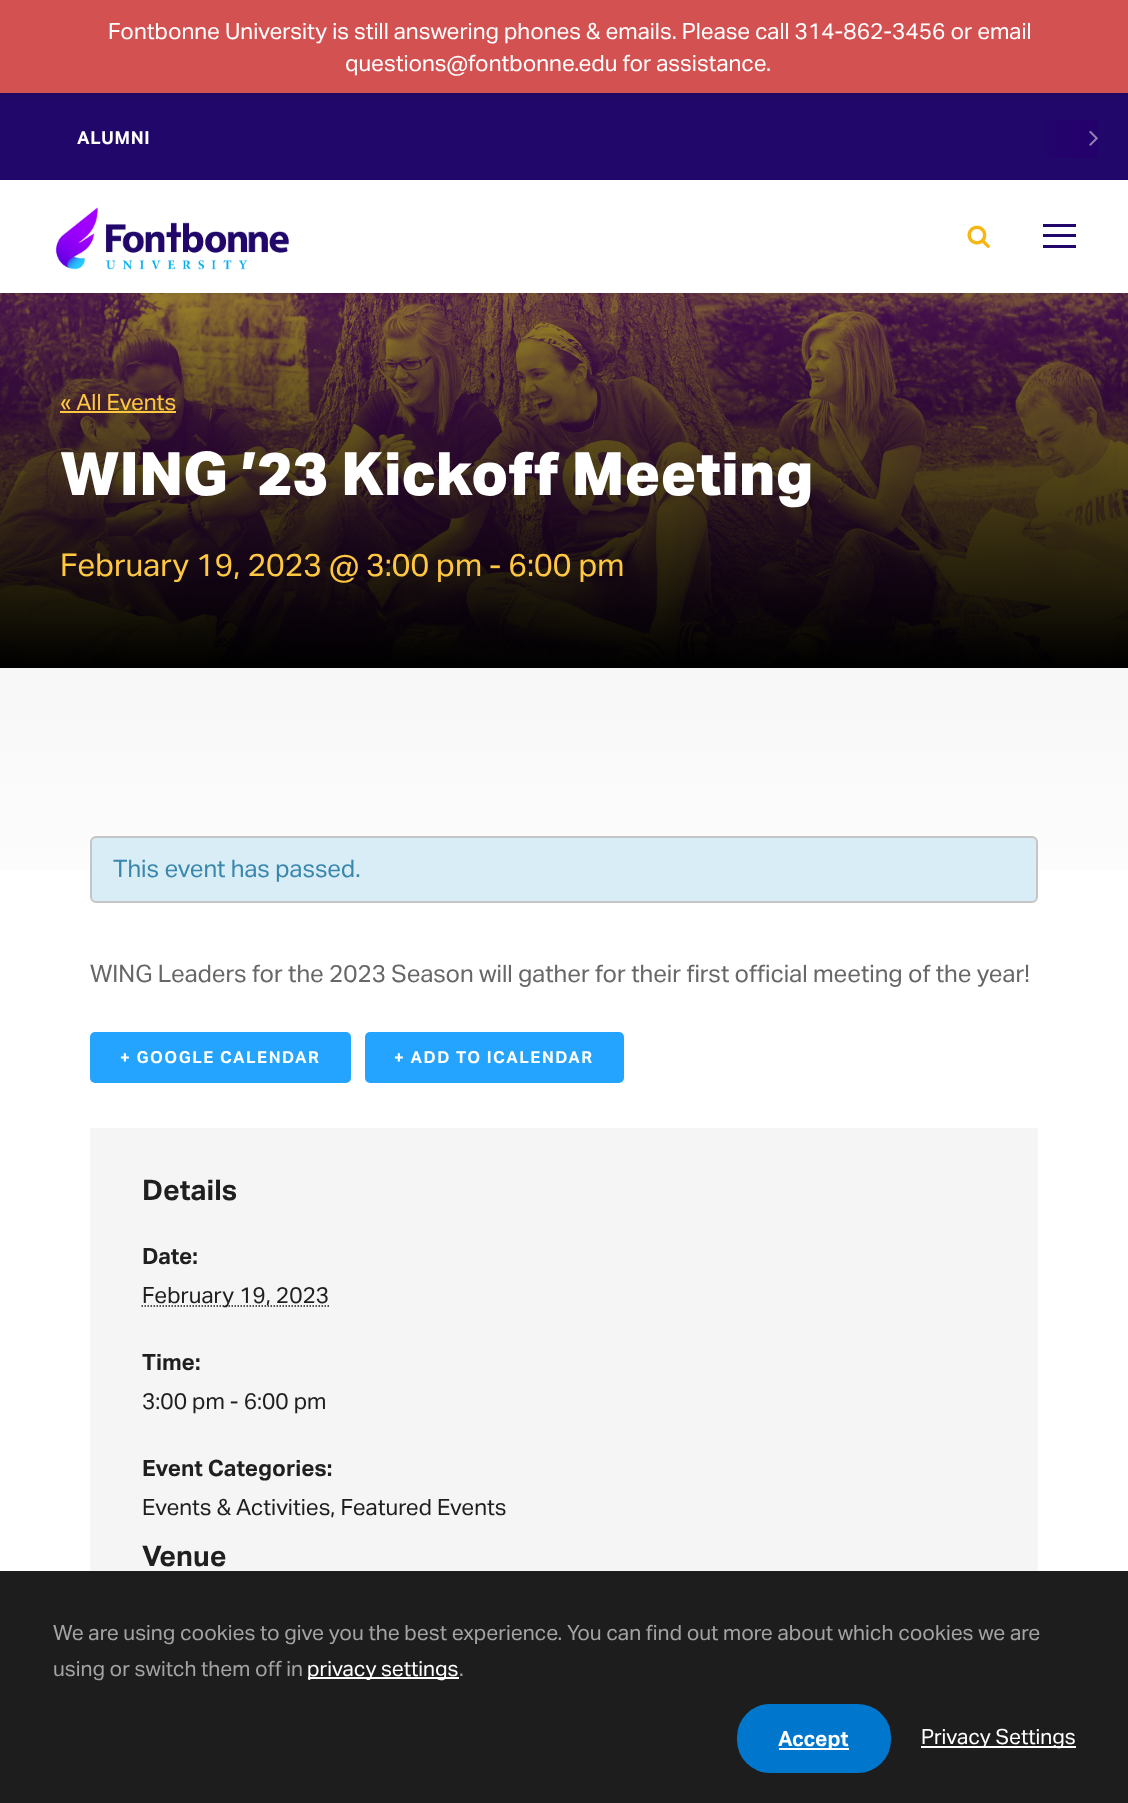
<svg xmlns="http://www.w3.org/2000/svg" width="1128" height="1803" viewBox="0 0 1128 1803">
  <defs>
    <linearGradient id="g1" gradientUnits="userSpaceOnUse" x1="564" y1="48" x2="564" y2="668"><stop offset="0" stop-color="#000000" stop-opacity="0"/><stop offset="1" stop-color="#000000"/></linearGradient>
    <filter id="blur1" x="-50%" y="-200%" width="200%" height="500%"><feGaussianBlur stdDeviation="1.5"/></filter>
    <filter id="blur2" x="-50%" y="-200%" width="200%" height="500%"><feGaussianBlur stdDeviation="3"/></filter>
    <linearGradient id="g2" gradientUnits="userSpaceOnUse" x1="1023" y1="139" x2="1098" y2="139"><stop offset="0" stop-color="#21076a"/><stop offset="0.8" stop-color="#24006c"/></linearGradient>
    <linearGradient id="g3" gradientUnits="userSpaceOnUse" x1="564" y1="668" x2="564" y2="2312"><stop offset="0" stop-color="#f7f7f7"/><stop offset="0.18" stop-color="#ffffff"/></linearGradient>
  </defs>
  <rect width="100%" height="100%" fill="#ffffff"/>
  <image x="0" y="293" width="1128" height="371" href="img4.png"/>
  <rect x="0" y="293" width="1128" height="375" fill="url(#g1)"/>
  <rect x="0" y="182" width="1128" height="112" fill="#000000" fill-opacity="0.1" filter="url(#blur1)"/>
  <rect x="0" y="93" width="1128" height="87" fill="#21076a"/>
  <rect x="0" y="5" width="1128" height="93" fill="#000000" fill-opacity="0.05" filter="url(#blur2)"/>
  <rect x="0" y="0" width="1128" height="93" fill="#d35151"/>
  <text x="108" y="39" font-family="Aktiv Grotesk" font-size="22.5" fill="#ffffff">Fontbonne University is still answering phones &amp; emails. Please call 314-862-3456 or email</text>
  <text x="345" y="71" font-family="Aktiv Grotesk" font-size="22.5" fill="#ffffff">questions@fontbonne.edu for assistance.</text>
  <rect x="1044" y="120" width="54" height="38" fill="url(#g2)"/>
  <text x="77" y="144" font-family="Aktiv Grotesk" font-size="18" font-weight="bold" letter-spacing="0.75" fill="#ffffff">ALUMNI</text>
  <image x="1089" y="130" width="9" height="16" href="img1.png"/>
  <rect x="0" y="180" width="1128" height="113" fill="#ffffff"/>
  <image x="56" y="207" width="233" height="63" href="img2.png"/>
  <image x="967" y="225" width="23" height="23" href="img3.png"/>
  <rect x="1043" y="224" width="33" height="3" fill="#21076a"/>
  <rect x="1043" y="234" width="33" height="3" fill="#21076a"/>
  <rect x="1043" y="245" width="33" height="3" fill="#21076a"/>
  <text x="60" y="410" font-family="Aktiv Grotesk" font-size="22.5" fill="#ffc840">« All Events</text>
  <rect x="60" y="411" width="116" height="2" fill="#ffc840"/>
  <text x="60" y="495" font-family="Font" font-size="60" font-weight="800" fill="#ffffff">WING ’23 Kickoff Meeting</text>
  <text x="60" y="576" font-family="Aktiv Grotesk" font-size="31.5" fill="#ffc840">February 19, 2023 @ 3:00 pm - 6:00 pm</text>
  <rect x="0" y="668" width="1128" height="203" fill="url(#g3)"/>
  <rect x="91" y="837" width="946" height="65" rx="5" fill="#d9edf7" stroke="#c6c5c6" stroke-width="2"/>
  <text x="113" y="877" font-family="Aktiv Grotesk" font-size="24" fill="#3a87ad">This event has passed.</text>
  <text x="90" y="982" font-family="Aktiv Grotesk" font-size="24" fill="#676668">WING Leaders for the 2023 Season will gather for their first official meeting of the year!</text>
  <rect x="90" y="1032" width="261" height="51" rx="5" fill="#25a4ff"/>
  <text x="120" y="1063" font-family="Aktiv Grotesk" font-size="16.5" font-weight="bold" letter-spacing="1.5" fill="#ffffff">+ GOOGLE CALENDAR</text>
  <rect x="365" y="1032" width="259" height="51" rx="5" fill="#25a4ff"/>
  <text x="394" y="1063" font-family="Aktiv Grotesk" font-size="16.5" font-weight="bold" letter-spacing="1.5" fill="#ffffff">+ ADD TO ICALENDAR</text>
  <rect x="90" y="1128" width="948" height="443" fill="#f5f5f5"/>
  <text x="142" y="1200" font-family="Aktiv Grotesk" font-size="28.5" font-weight="bold" fill="#1f1f1f">Details</text>
  <text x="142" y="1264" font-family="Aktiv Grotesk" font-size="22.5" font-weight="bold" fill="#1f1f1f">Date:</text>
  <path d="M141.5 1306H329" fill="none" stroke="#1f1f1f" stroke-width="1.5" stroke-dasharray="1.5 1.5"/>
  <text x="142" y="1303" font-family="Aktiv Grotesk" font-size="22.5" fill="#1f1f1f">February 19, 2023</text>
  <text x="142" y="1370" font-family="Aktiv Grotesk" font-size="22.5" font-weight="bold" fill="#1f1f1f">Time:</text>
  <text x="142" y="1409" font-family="Aktiv Grotesk" font-size="22.5" fill="#1f1f1f">3:00 pm - 6:00 pm</text>
  <text x="142" y="1476" font-family="Aktiv Grotesk" font-size="22.5" font-weight="bold" fill="#1f1f1f">Event Categories:</text>
  <text x="142" y="1515" font-family="Aktiv Grotesk" font-size="22.5" fill="#1f1f1f">Events &amp; Activities, Featured Events</text>
  <text x="142" y="1566" font-family="Aktiv Grotesk" font-size="28.5" font-weight="bold" fill="#1f1f1f">Venue</text>
  <rect x="0" y="1571" width="1128" height="232" fill="#1d1d1d"/>
  <text x="53" y="1640" font-family="Aktiv Grotesk" font-size="21" fill="#a3a3a3">We are using cookies to give you the best experience. You can find out more about which cookies we are</text>
  <text x="53" y="1676" font-family="Aktiv Grotesk" font-size="21" fill="#a3a3a3">using or switch them off in</text>
  <rect x="308" y="1677" width="151" height="2" fill="#ffffff"/>
  <text x="307" y="1676" font-family="Aktiv Grotesk" font-size="21" fill="#ffffff">privacy settings</text>
  <text x="459" y="1676" font-family="Aktiv Grotesk" font-size="21" fill="#a3a3a3">.</text>
  <rect x="737" y="1704" width="154" height="69" rx="33" fill="#0077cc"/>
  <rect x="779" y="1748" width="70" height="2" fill="#ffffff"/>
  <text x="778" y="1746" font-family="Aktiv Grotesk" font-size="21" font-weight="bold" fill="#ffffff">Accept</text>
  <rect x="921" y="1746" width="155" height="2" fill="#ffffff"/>
  <text x="921" y="1744" font-family="Aktiv Grotesk" font-size="21" fill="#ffffff">Privacy Settings</text>
</svg>
